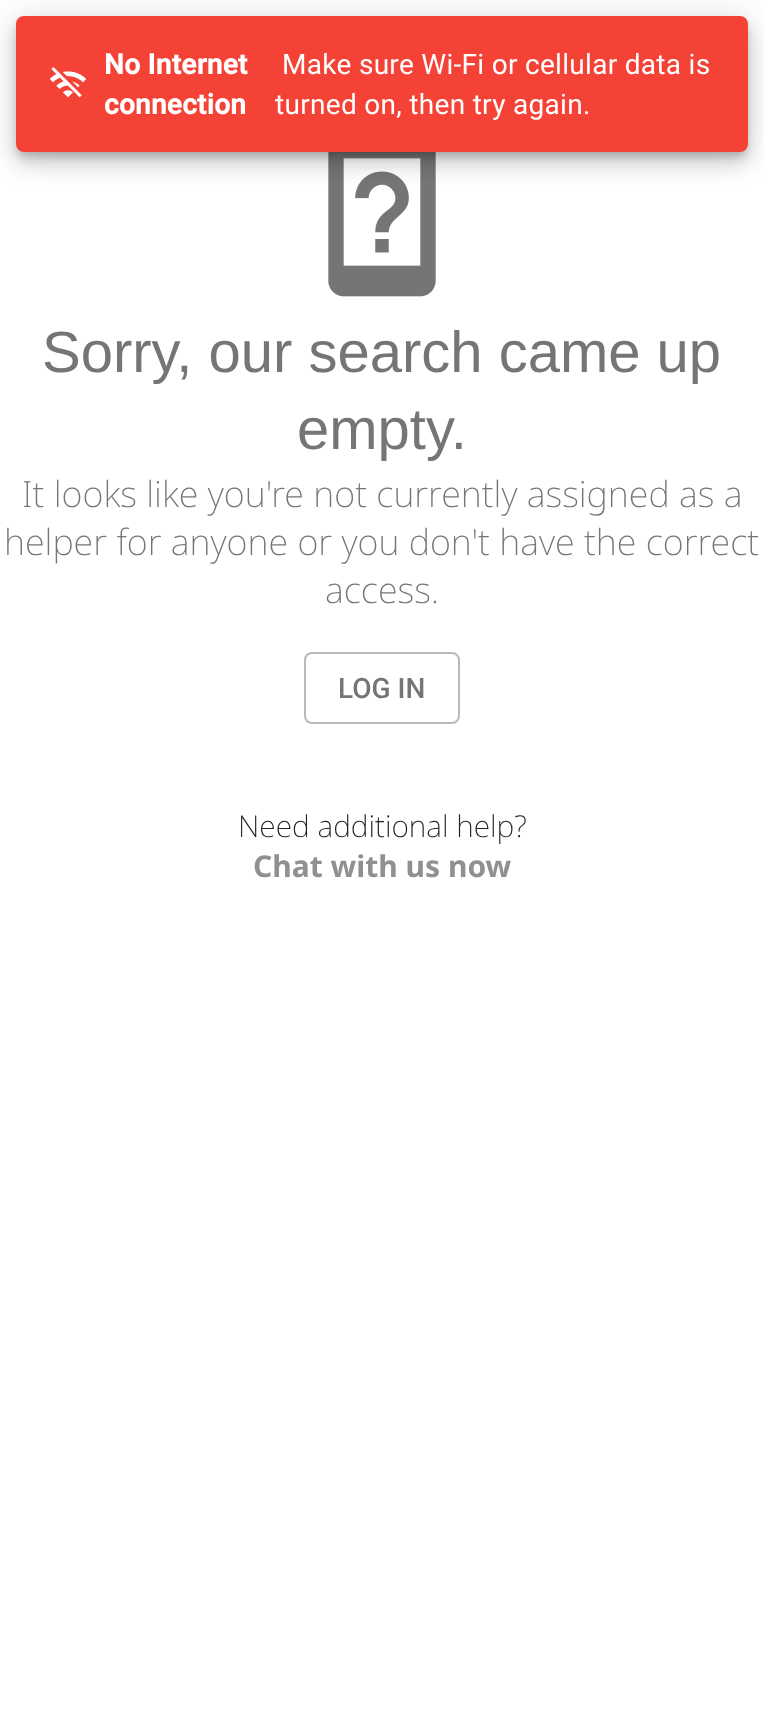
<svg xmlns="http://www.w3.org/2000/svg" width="764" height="1733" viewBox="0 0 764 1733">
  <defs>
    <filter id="blur1" x="-50%" y="-200%" width="200%" height="500%"><feGaussianBlur stdDeviation="18"/></filter>
    <filter id="blur2" x="-50%" y="-200%" width="200%" height="500%"><feGaussianBlur stdDeviation="10"/></filter>
    <filter id="blur3" x="-50%" y="-200%" width="200%" height="500%"><feGaussianBlur stdDeviation="5"/></filter>
  </defs>
  <rect width="100%" height="100%" fill="#ffffff"/>
  <image x="328" y="152" width="108" height="145" href="img2.png"/>
  <rect x="16" y="18" width="732" height="136" rx="8" fill="#000000" fill-opacity="0.12" filter="url(#blur1)"/>
  <rect x="16" y="28" width="732" height="136" rx="8" fill="#000000" fill-opacity="0.14" filter="url(#blur2)"/>
  <rect x="18" y="24" width="728" height="132" rx="6" fill="#000000" fill-opacity="0.2" filter="url(#blur3)"/>
  <rect x="16" y="16" width="732" height="136" rx="8" fill="#f44336"/>
  <image x="49" y="67" width="38" height="31" href="img1.png"/>
  <text x="104" y="74" font-family="Roboto" font-size="28" font-weight="bold" letter-spacing="0.3" fill="#ffffff">No Internet</text>
  <text x="104" y="114" font-family="Roboto" font-size="28" font-weight="bold" letter-spacing="0.3" fill="#ffffff">connection</text>
  <text x="282" y="74" font-family="Roboto" font-size="28" letter-spacing="0.3" fill="#ffffff">Make sure Wi-Fi or cellular data is</text>
  <text x="275" y="114" font-family="Roboto" font-size="28" letter-spacing="0.3" fill="#ffffff">turned on, then try again.</text>
  <text x="42" y="372" font-family="Liberation Sans" font-size="58" fill="#757575">Sorry, our search came up</text>
  <text x="297" y="449" font-family="Liberation Sans" font-size="58" fill="#757575">empty.</text>
  <text x="22" y="507" font-family="Noto Sans" font-size="36" font-weight="200" fill="#757575">It looks like you're not currently assigned as a</text>
  <text x="4" y="555" font-family="Noto Sans" font-size="36" font-weight="200" fill="#757575">helper for anyone or you don't have the correct</text>
  <text x="325" y="603" font-family="Noto Sans" font-size="36" font-weight="200" fill="#757575">access.</text>
  <rect x="305" y="653" width="154" height="70" rx="7" fill="none" stroke="#bababa" stroke-width="2"/>
  <text x="338" y="698" font-family="Roboto" font-size="28" font-weight="500" fill="#757575">LOG IN</text>
  <text x="238" y="837" font-family="Noto Sans" font-size="30" font-weight="200" fill="#212121">Need additional help?</text>
  <text x="253" y="877" font-family="Noto Sans" font-size="30" font-weight="bold" fill="#909090">Chat with us now</text>
</svg>
